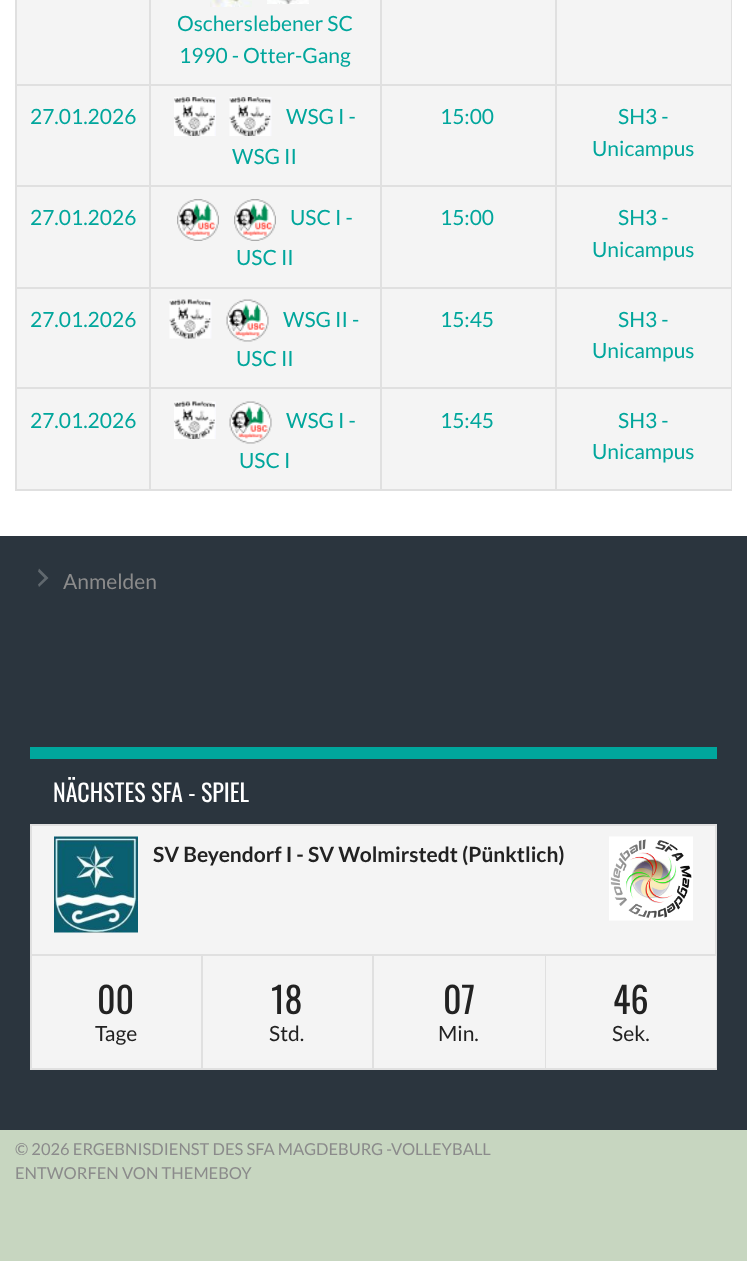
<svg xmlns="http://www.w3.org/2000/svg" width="747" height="1261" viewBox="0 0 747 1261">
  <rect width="100%" height="100%" fill="#c7d6c0"/>
  <rect x="0" y="0" width="747" height="536" fill="#ffffff"/>
  <rect x="17" y="0" width="714" height="489" fill="#f4f4f4"/>
  <rect x="731" y="0" width="1" height="491" fill="#e0e0e0"/>
  <rect x="15" y="489" width="717" height="2" fill="#e0e0e0"/>
  <rect x="15" y="0" width="2" height="491" fill="#e0e0e0"/>
  <rect x="555" y="84" width="177" height="2" fill="#e0e0e0"/>
  <rect x="555" y="185" width="177" height="2" fill="#e0e0e0"/>
  <rect x="555" y="287" width="177" height="2" fill="#e0e0e0"/>
  <rect x="555" y="387" width="177" height="2" fill="#e0e0e0"/>
  <rect x="555" y="387" width="2" height="104" fill="#e0e0e0"/>
  <rect x="380" y="387" width="177" height="2" fill="#e0e0e0"/>
  <rect x="555" y="287" width="2" height="102" fill="#e0e0e0"/>
  <rect x="380" y="287" width="177" height="2" fill="#e0e0e0"/>
  <rect x="555" y="185" width="2" height="103" fill="#e0e0e0"/>
  <rect x="380" y="185" width="177" height="2" fill="#e0e0e0"/>
  <rect x="555" y="84" width="2" height="102" fill="#e0e0e0"/>
  <rect x="380" y="84" width="177" height="2" fill="#e0e0e0"/>
  <rect x="380" y="387" width="2" height="104" fill="#e0e0e0"/>
  <rect x="149" y="387" width="232" height="2" fill="#e0e0e0"/>
  <rect x="380" y="287" width="2" height="102" fill="#e0e0e0"/>
  <rect x="149" y="287" width="232" height="2" fill="#e0e0e0"/>
  <rect x="380" y="185" width="2" height="103" fill="#e0e0e0"/>
  <rect x="149" y="185" width="232" height="2" fill="#e0e0e0"/>
  <rect x="380" y="84" width="2" height="102" fill="#e0e0e0"/>
  <rect x="149" y="84" width="232" height="2" fill="#e0e0e0"/>
  <rect x="149" y="387" width="2" height="104" fill="#e0e0e0"/>
  <rect x="15" y="387" width="135" height="2" fill="#e0e0e0"/>
  <rect x="149" y="287" width="2" height="102" fill="#e0e0e0"/>
  <rect x="15" y="287" width="135" height="2" fill="#e0e0e0"/>
  <rect x="149" y="185" width="2" height="103" fill="#e0e0e0"/>
  <rect x="15" y="185" width="135" height="2" fill="#e0e0e0"/>
  <rect x="149" y="84" width="2" height="102" fill="#e0e0e0"/>
  <rect x="15" y="84" width="135" height="2" fill="#e0e0e0"/>
  <rect x="149" y="0" width="2" height="86" fill="#e0e0e0"/>
  <image x="210" y="0" width="42" height="7" href="img1.png"/>
  <image x="267" y="0" width="42" height="4" href="img2.png"/>
  <text x="177" y="31" font-family="Lato" font-size="21" fill="#00a69c">Oscherslebener SC</text>
  <text x="179" y="63" font-family="Lato" font-size="21" fill="#00a69c">1990 - Otter-Gang</text>
  <rect x="380" y="0" width="2" height="86" fill="#e0e0e0"/>
  <rect x="555" y="0" width="2" height="86" fill="#e0e0e0"/>
  <text x="30" y="124" font-family="Lato" font-size="21" fill="#00a69c">27.01.2026</text>
  <image x="174" y="97" width="42" height="39" href="img3.png"/>
  <image x="229" y="97" width="43" height="39" href="img4.png"/>
  <text x="286" y="124" font-family="Lato" font-size="21" fill="#00a69c">WSG I -</text>
  <text x="232" y="164" font-family="Lato" font-size="21" fill="#00a69c">WSG II</text>
  <text x="440" y="124" font-family="Lato" font-size="21" fill="#00a69c">15:00</text>
  <text x="618" y="124" font-family="Lato" font-size="21" fill="#00a69c">SH3 -</text>
  <text x="592" y="156" font-family="Lato" font-size="21" fill="#00a69c">Unicampus</text>
  <text x="30" y="225" font-family="Lato" font-size="21" fill="#00a69c">27.01.2026</text>
  <image x="177" y="199" width="42" height="42" href="img5.png"/>
  <image x="234" y="199" width="42" height="42" href="img6.png"/>
  <text x="290" y="225" font-family="Lato" font-size="21" fill="#00a69c">USC I -</text>
  <text x="236" y="265" font-family="Lato" font-size="21" fill="#00a69c">USC II</text>
  <text x="440" y="225" font-family="Lato" font-size="21" fill="#00a69c">15:00</text>
  <text x="618" y="225" font-family="Lato" font-size="21" fill="#00a69c">SH3 -</text>
  <text x="592" y="257" font-family="Lato" font-size="21" fill="#00a69c">Unicampus</text>
  <text x="30" y="327" font-family="Lato" font-size="21" fill="#00a69c">27.01.2026</text>
  <image x="169" y="299" width="43" height="40" href="img7.png"/>
  <image x="226" y="299" width="43" height="43" href="img8.png"/>
  <text x="283" y="327" font-family="Lato" font-size="21" fill="#00a69c">WSG II -</text>
  <text x="236" y="366" font-family="Lato" font-size="21" fill="#00a69c">USC II</text>
  <text x="440" y="327" font-family="Lato" font-size="21" fill="#00a69c">15:45</text>
  <text x="618" y="327" font-family="Lato" font-size="21" fill="#00a69c">SH3 -</text>
  <text x="592" y="358" font-family="Lato" font-size="21" fill="#00a69c">Unicampus</text>
  <text x="30" y="428" font-family="Lato" font-size="21" fill="#00a69c">27.01.2026</text>
  <image x="174" y="401" width="42" height="38" href="img9.png"/>
  <image x="229" y="401" width="43" height="43" href="img10.png"/>
  <text x="286" y="428" font-family="Lato" font-size="21" fill="#00a69c">WSG I -</text>
  <text x="239" y="468" font-family="Lato" font-size="21" fill="#00a69c">USC I</text>
  <text x="440" y="428" font-family="Lato" font-size="21" fill="#00a69c">15:45</text>
  <text x="618" y="428" font-family="Lato" font-size="21" fill="#00a69c">SH3 -</text>
  <text x="592" y="459" font-family="Lato" font-size="21" fill="#00a69c">Unicampus</text>
  <rect x="0" y="536" width="747" height="594" fill="#2b353e"/>
  <path d="M38 584.5L44.5 578L38 571.5L39 568.5L48.5 578L39 587Z" fill="#60686e"/>
  <text x="63" y="589" font-family="Lato" font-size="21" fill="#8b8b8b">Anmelden</text>
  <rect x="30" y="747" width="687" height="12" fill="#00a69c"/>
  <text x="53" y="802" font-family="Oswald" font-size="24" fill="#ffffff">NÄCHSTES SFA - SPIEL</text>
  <rect x="201" y="954" width="2" height="116" fill="#e0e0e0"/>
  <rect x="30" y="1068" width="173" height="2" fill="#e0e0e0"/>
  <rect x="30" y="954" width="2" height="116" fill="#e0e0e0"/>
  <rect x="372" y="954" width="2" height="116" fill="#e0e0e0"/>
  <rect x="545" y="954" width="1" height="116" fill="#e0e0e0"/>
  <rect x="716" y="954" width="1" height="116" fill="#e0e0e0"/>
  <rect x="31" y="825" width="685" height="130" fill="#f4f4f4" stroke="#e0e0e0" stroke-width="2"/>
  <image x="54" y="836" width="84" height="97" href="img11.png"/>
  <text x="153" y="862" font-family="Lato" font-size="21" font-weight="bold" fill="#222222">SV Beyendorf I - SV Wolmirstedt (Pünktlich)</text>
  <image x="609" y="836" width="84" height="85" href="img12.png"/>
  <rect x="32" y="956" width="169" height="112" fill="#f4f4f4"/>
  <text x="97" y="1014" font-family="Oswald" font-size="36" fill="#222222">00</text>
  <text x="95" y="1041" font-family="Lato" font-size="21" fill="#222222">Tage</text>
  <rect x="203" y="956" width="169" height="112" fill="#f4f4f4"/>
  <rect x="203" y="1068" width="171" height="2" fill="#e0e0e0"/>
  <text x="271" y="1014" font-family="Oswald" font-size="36" fill="#222222">18</text>
  <text x="269" y="1041" font-family="Lato" font-size="21" fill="#222222">Std.</text>
  <rect x="374" y="956" width="171" height="112" fill="#f4f4f4"/>
  <rect x="374" y="1068" width="172" height="2" fill="#e0e0e0"/>
  <text x="443" y="1014" font-family="Oswald" font-size="36" fill="#222222">07</text>
  <text x="438" y="1041" font-family="Lato" font-size="21" fill="#222222">Min.</text>
  <rect x="546" y="956" width="170" height="112" fill="#f4f4f4"/>
  <rect x="546" y="1068" width="171" height="2" fill="#e0e0e0"/>
  <text x="613" y="1014" font-family="Oswald" font-size="36" fill="#222222">46</text>
  <text x="612" y="1041" font-family="Lato" font-size="21" fill="#222222">Sek.</text>
  <text x="15" y="1155" font-family="Lato" font-size="16.5" fill="#8b8b8b">© 2026 ERGEBNISDIENST DES SFA MAGDEBURG -VOLLEYBALL</text>
  <text x="15" y="1179" font-family="Lato" font-size="16.5" fill="#8b8b8b">ENTWORFEN VON THEMEBOY</text>
</svg>
